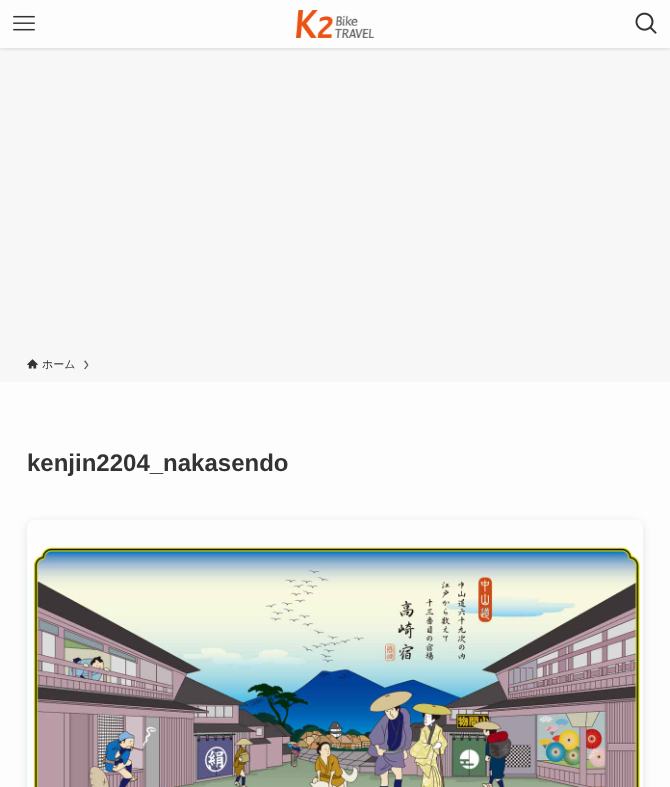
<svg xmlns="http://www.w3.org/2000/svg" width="670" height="787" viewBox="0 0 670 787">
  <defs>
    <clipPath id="clip1"><rect x="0" y="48" width="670" height="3"/></clipPath>
    <filter id="blur1" x="-50%" y="-200%" width="200%" height="500%"><feGaussianBlur stdDeviation="2"/></filter>
    <clipPath id="clip2"><path d="M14 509H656V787H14ZM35 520H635C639.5 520 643 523.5 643 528V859C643 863.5 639.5 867 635 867H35C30.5 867 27 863.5 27 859V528C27 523.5 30.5 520 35 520Z" clip-rule="evenodd"/></clipPath>
    <filter id="blur2" x="-50%" y="-200%" width="200%" height="500%"><feGaussianBlur stdDeviation="4"/></filter>
  </defs>
  <rect width="100%" height="100%" fill="#fdfdfd"/>
  <rect x="0" y="48" width="670" height="334" fill="#f7f7f7"/>
  <g clip-path="url(#clip1)">
    <rect x="0" y="1" width="670" height="48" fill="#000000" fill-opacity="0.12" filter="url(#blur1)"/>
  </g>
  <image x="13" y="15" width="22" height="16" href="img1.png"/>
  <image x="296" y="10" width="78" height="28" href="img2.png"/>
  <image x="635" y="12" width="22" height="22" href="img3.png"/>
  <image x="27" y="359" width="11" height="10" href="img4.png"/>
  <text x="42" y="368" font-family="WenQuanYi Zen Hei" font-size="11" font-weight="500" fill="#333333">ホーム</text>
  <path d="M85.5 360.5L84 361L87 365L84 369H85.5L88.5 365Z" fill="#5a5a5a"/>
  <text x="27" y="471" font-family="Liberation Sans" font-size="24" font-weight="bold" fill="#333333">kenjin2204_nakasendo</text>
  <g clip-path="url(#clip2)">
    <rect x="27" y="522" width="616" height="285" rx="8" fill="#000000" fill-opacity="0.1" filter="url(#blur2)"/>
  </g>
  <image x="28" y="543" width="614" height="244" href="img5.png"/>
</svg>
